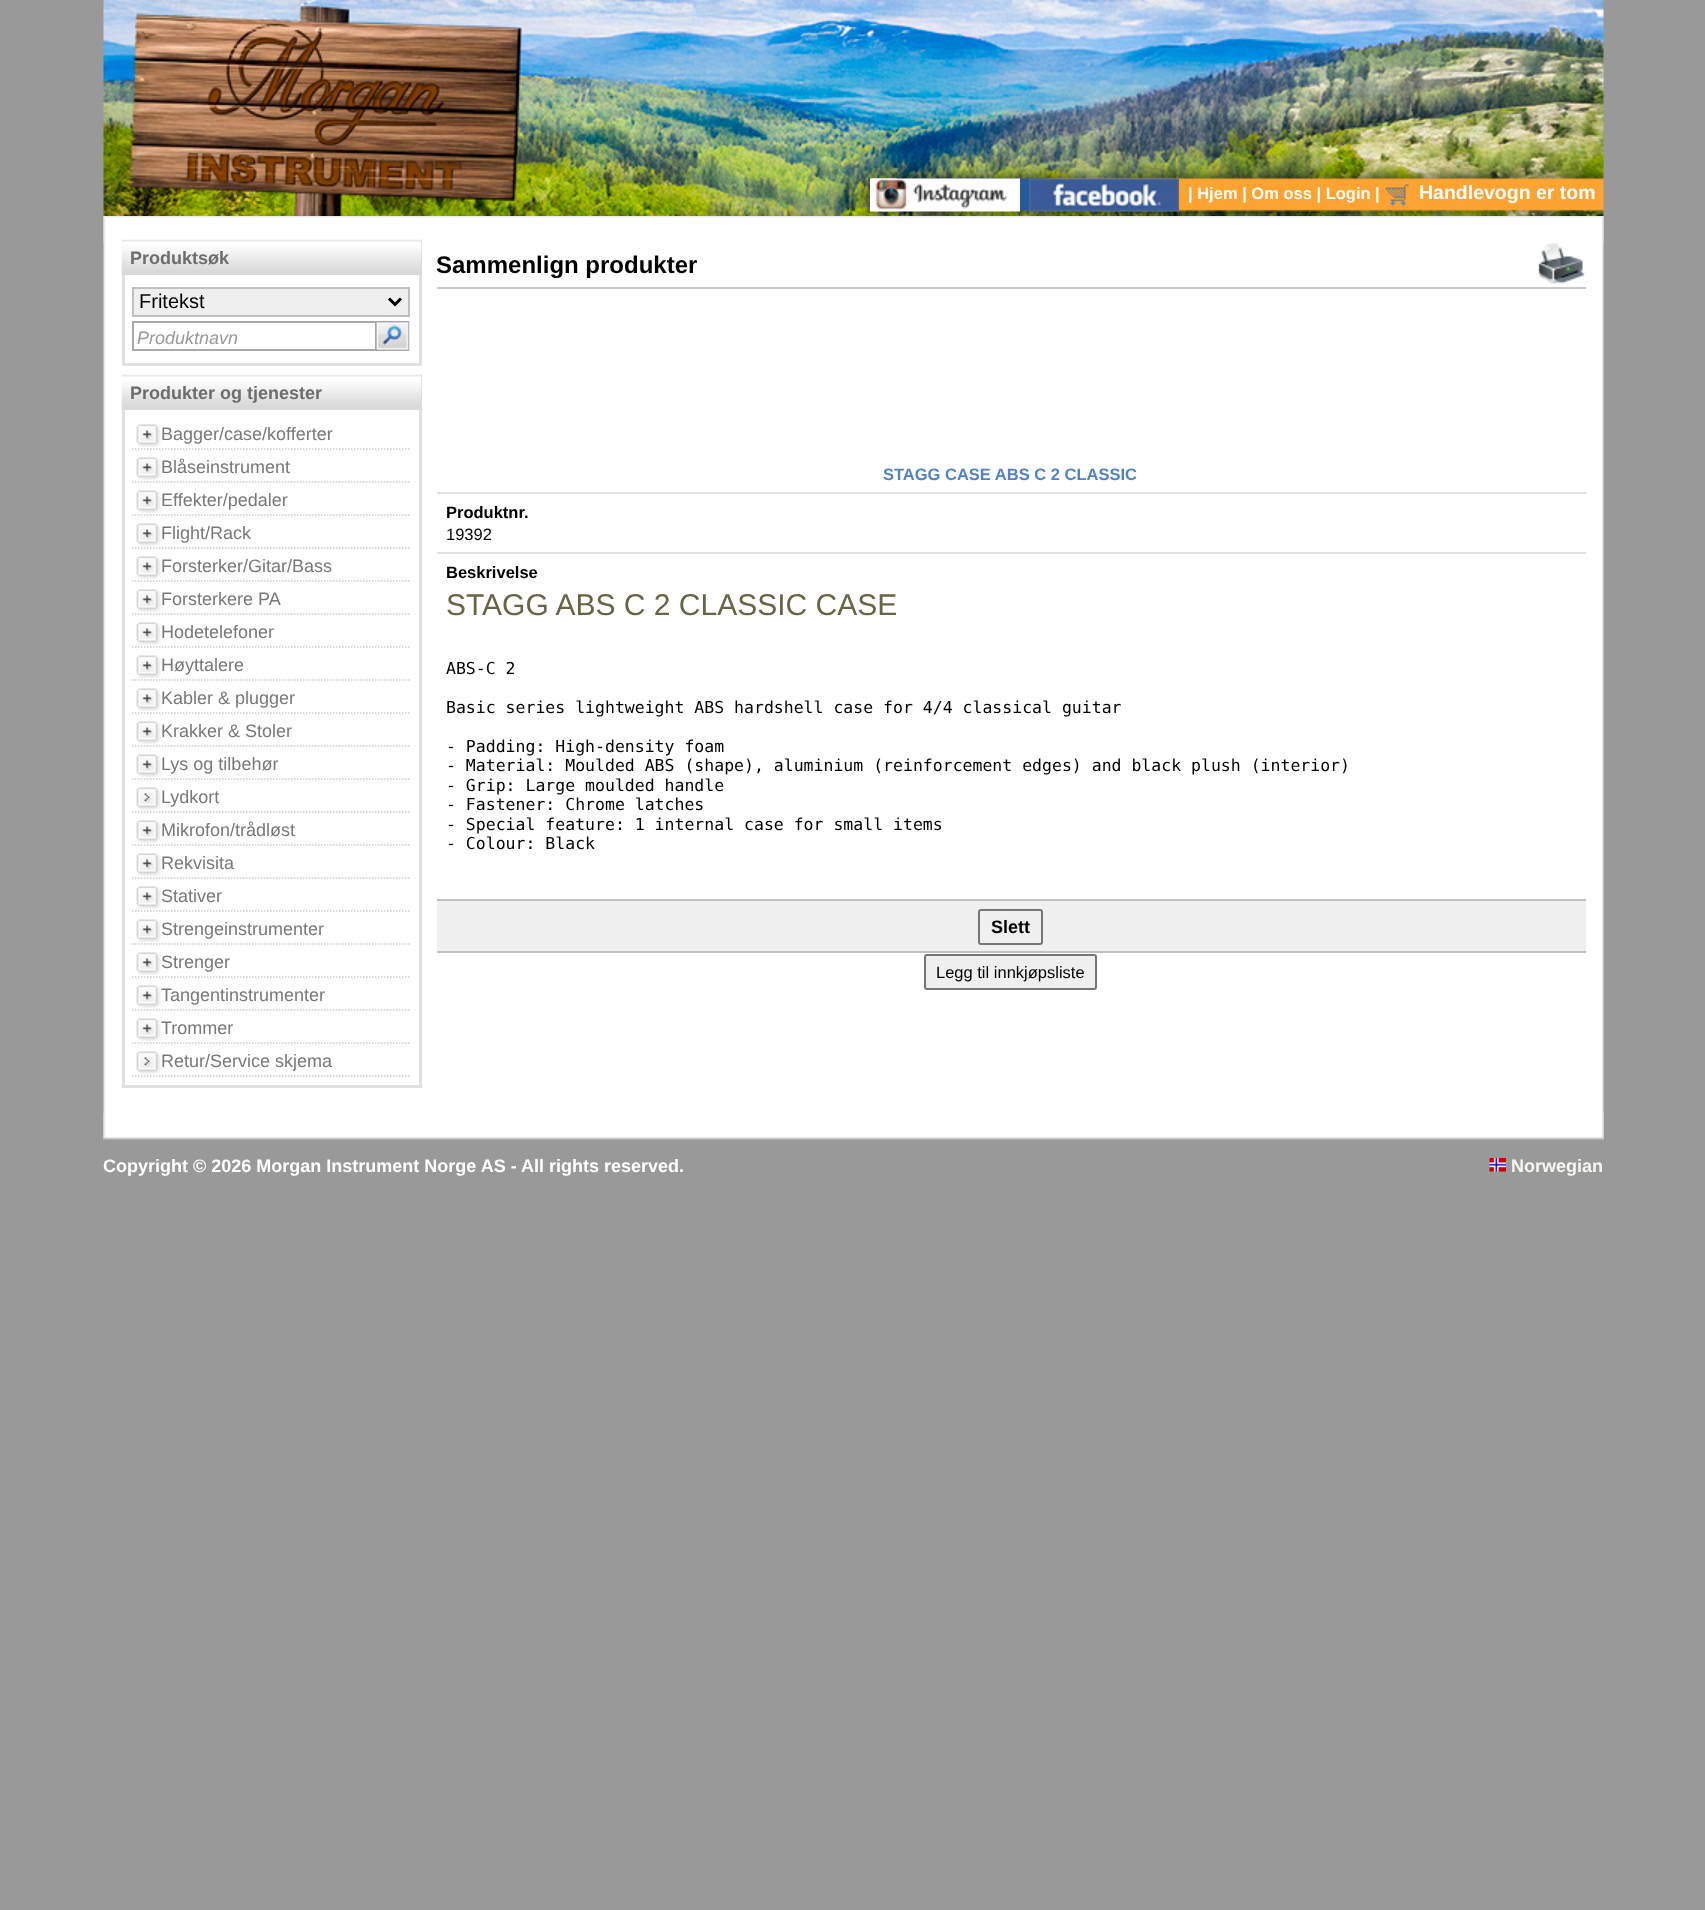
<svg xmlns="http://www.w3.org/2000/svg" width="1705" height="1910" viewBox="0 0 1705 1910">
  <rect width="100%" height="100%" fill="#999999"/>
  <image x="103" y="0" width="1501" height="216" href="img1.png"/>
  <image x="870" y="178" width="150" height="34" href="img2.png"/>
  <image x="1029" y="178" width="150" height="34" href="img3.png"/>
  <text x="1188" y="199" font-family="Liberation Sans" font-size="16.5" font-weight="bold" fill="#ffffff">| Hjem | Om oss | Login |</text>
  <image x="1385" y="184" width="24" height="22" href="img4.png"/>
  <text x="1419" y="199" font-family="Liberation Sans" font-size="19.5" font-weight="bold" fill="#ffffff">Handlevogn er tom</text>
  <image x="103" y="216" width="1501" height="924" href="img5.png"/>
  <image x="103" y="1113" width="1501" height="27" href="img6.png"/>
  <image x="103" y="216" width="1501" height="27" href="img7.png"/>
  <rect x="122" y="239" width="300" height="36" fill="#dadada"/>
  <image x="121" y="239" width="301" height="34" href="img8.png"/>
  <text x="130" y="264" font-family="Liberation Sans" font-size="18" font-weight="bold" fill="#6d6d6d">Produktsøk</text>
  <rect x="419" y="275" width="3" height="91" fill="#e0e0e0"/>
  <rect x="122" y="363" width="300" height="3" fill="#e0e0e0"/>
  <rect x="122" y="275" width="3" height="91" fill="#e0e0e0"/>
  <rect x="133" y="288" width="276" height="28" fill="#efefef" stroke="#c0c0c0" stroke-width="2"/>
  <path d="M389 298.5L395 304.5L401 298.5" fill="none" stroke="#000000" stroke-width="3"/>
  <text x="139" y="308" font-family="Liberation Sans" font-size="20" fill="#000000">Fritekst</text>
  <rect x="133" y="322" width="243" height="28" fill="none" stroke="#aaaaaa" stroke-width="2"/>
  <image x="376" y="321" width="34" height="30" href="img9.png"/>
  <text x="137" y="344" font-family="Liberation Sans" font-size="18" font-style="italic" fill="#999999">Produktnavn</text>
  <rect x="122" y="374" width="300" height="36" fill="#dadada"/>
  <image x="121" y="374" width="301" height="34" href="img8.png"/>
  <text x="130" y="399" font-family="Liberation Sans" font-size="18" font-weight="bold" fill="#6d6d6d">Produkter og tjenester</text>
  <rect x="419" y="410" width="3" height="678" fill="#e0e0e0"/>
  <rect x="122" y="1085" width="300" height="3" fill="#e0e0e0"/>
  <rect x="122" y="410" width="3" height="678" fill="#e0e0e0"/>
  <image x="136" y="424" width="25" height="23" href="img10.png"/>
  <path d="M132 449H411" fill="none" stroke="#cccccc" stroke-width="1.5" stroke-dasharray="1.5 1.5"/>
  <text x="161" y="440" font-family="Liberation Sans" font-size="18" fill="#787878">Bagger/case/kofferter</text>
  <image x="136" y="457" width="25" height="23" href="img10.png"/>
  <path d="M132 482H411" fill="none" stroke="#cccccc" stroke-width="1.5" stroke-dasharray="1.5 1.5"/>
  <text x="161" y="473" font-family="Liberation Sans" font-size="18" fill="#787878">Blåseinstrument</text>
  <image x="136" y="490" width="25" height="23" href="img10.png"/>
  <path d="M132 515H411" fill="none" stroke="#cccccc" stroke-width="1.5" stroke-dasharray="1.5 1.5"/>
  <text x="161" y="506" font-family="Liberation Sans" font-size="18" fill="#787878">Effekter/pedaler</text>
  <image x="136" y="523" width="25" height="23" href="img10.png"/>
  <path d="M132 548H411" fill="none" stroke="#cccccc" stroke-width="1.5" stroke-dasharray="1.5 1.5"/>
  <text x="161" y="539" font-family="Liberation Sans" font-size="18" fill="#787878">Flight/Rack</text>
  <image x="136" y="556" width="25" height="23" href="img10.png"/>
  <path d="M132 581H411" fill="none" stroke="#cccccc" stroke-width="1.5" stroke-dasharray="1.5 1.5"/>
  <text x="161" y="572" font-family="Liberation Sans" font-size="18" fill="#787878">Forsterker/Gitar/Bass</text>
  <image x="136" y="589" width="25" height="23" href="img10.png"/>
  <path d="M132 614H411" fill="none" stroke="#cccccc" stroke-width="1.5" stroke-dasharray="1.5 1.5"/>
  <text x="161" y="605" font-family="Liberation Sans" font-size="18" fill="#787878">Forsterkere PA</text>
  <image x="136" y="622" width="25" height="23" href="img10.png"/>
  <path d="M132 647H411" fill="none" stroke="#cccccc" stroke-width="1.5" stroke-dasharray="1.5 1.5"/>
  <text x="161" y="638" font-family="Liberation Sans" font-size="18" fill="#787878">Hodetelefoner</text>
  <image x="136" y="655" width="25" height="23" href="img10.png"/>
  <path d="M132 680H411" fill="none" stroke="#cccccc" stroke-width="1.5" stroke-dasharray="1.5 1.5"/>
  <text x="161" y="671" font-family="Liberation Sans" font-size="18" fill="#787878">Høyttalere</text>
  <image x="136" y="688" width="25" height="23" href="img10.png"/>
  <path d="M132 713H411" fill="none" stroke="#cccccc" stroke-width="1.5" stroke-dasharray="1.5 1.5"/>
  <text x="161" y="704" font-family="Liberation Sans" font-size="18" fill="#787878">Kabler &amp; plugger</text>
  <image x="136" y="721" width="25" height="23" href="img10.png"/>
  <path d="M132 746H411" fill="none" stroke="#cccccc" stroke-width="1.5" stroke-dasharray="1.5 1.5"/>
  <text x="161" y="737" font-family="Liberation Sans" font-size="18" fill="#787878">Krakker &amp; Stoler</text>
  <image x="136" y="754" width="25" height="23" href="img10.png"/>
  <path d="M132 779H411" fill="none" stroke="#cccccc" stroke-width="1.5" stroke-dasharray="1.5 1.5"/>
  <text x="161" y="770" font-family="Liberation Sans" font-size="18" fill="#787878">Lys og tilbehør</text>
  <image x="136" y="787" width="25" height="23" href="img11.png"/>
  <path d="M132 812H411" fill="none" stroke="#cccccc" stroke-width="1.5" stroke-dasharray="1.5 1.5"/>
  <text x="161" y="803" font-family="Liberation Sans" font-size="18" fill="#787878">Lydkort</text>
  <image x="136" y="820" width="25" height="23" href="img10.png"/>
  <path d="M132 845H411" fill="none" stroke="#cccccc" stroke-width="1.5" stroke-dasharray="1.5 1.5"/>
  <text x="161" y="836" font-family="Liberation Sans" font-size="18" fill="#787878">Mikrofon/trådløst</text>
  <image x="136" y="853" width="25" height="23" href="img10.png"/>
  <path d="M132 878H411" fill="none" stroke="#cccccc" stroke-width="1.5" stroke-dasharray="1.5 1.5"/>
  <text x="161" y="869" font-family="Liberation Sans" font-size="18" fill="#787878">Rekvisita</text>
  <image x="136" y="886" width="25" height="23" href="img10.png"/>
  <path d="M132 911H411" fill="none" stroke="#cccccc" stroke-width="1.5" stroke-dasharray="1.5 1.5"/>
  <text x="161" y="902" font-family="Liberation Sans" font-size="18" fill="#787878">Stativer</text>
  <image x="136" y="919" width="25" height="23" href="img10.png"/>
  <path d="M132 944H411" fill="none" stroke="#cccccc" stroke-width="1.5" stroke-dasharray="1.5 1.5"/>
  <text x="161" y="935" font-family="Liberation Sans" font-size="18" fill="#787878">Strengeinstrumenter</text>
  <image x="136" y="952" width="25" height="23" href="img10.png"/>
  <path d="M132 977H411" fill="none" stroke="#cccccc" stroke-width="1.5" stroke-dasharray="1.5 1.5"/>
  <text x="161" y="968" font-family="Liberation Sans" font-size="18" fill="#787878">Strenger</text>
  <image x="136" y="985" width="25" height="23" href="img10.png"/>
  <path d="M132 1010H411" fill="none" stroke="#cccccc" stroke-width="1.5" stroke-dasharray="1.5 1.5"/>
  <text x="161" y="1001" font-family="Liberation Sans" font-size="18" fill="#787878">Tangentinstrumenter</text>
  <image x="136" y="1018" width="25" height="23" href="img10.png"/>
  <path d="M132 1043H411" fill="none" stroke="#cccccc" stroke-width="1.5" stroke-dasharray="1.5 1.5"/>
  <text x="161" y="1034" font-family="Liberation Sans" font-size="18" fill="#787878">Trommer</text>
  <image x="136" y="1051" width="25" height="23" href="img11.png"/>
  <path d="M132 1076H411" fill="none" stroke="#cccccc" stroke-width="1.5" stroke-dasharray="1.5 1.5"/>
  <text x="161" y="1067" font-family="Liberation Sans" font-size="18" fill="#787878">Retur/Service skjema</text>
  <rect x="437" y="287" width="1149" height="2" fill="#cacaca"/>
  <text x="436" y="273" font-family="Liberation Sans" font-size="24" font-weight="bold" fill="#000000">Sammenlign produkter</text>
  <image x="1538" y="243" width="47" height="41" href="img12.png"/>
  <text x="883" y="480" font-family="Liberation Sans" font-size="16.5" font-weight="bold" fill="#4f82c7">STAGG CASE ABS C 2 CLASSIC</text>
  <rect x="437" y="492" width="1149" height="2" fill="#e0e0e0"/>
  <text x="446" y="518" font-family="Liberation Sans" font-size="16.5" font-weight="bold" fill="#000000">Produktnr.</text>
  <text x="446" y="540" font-family="Liberation Sans" font-size="16.5" fill="#000000">19392</text>
  <rect x="437" y="552" width="1149" height="2" fill="#e0e0e0"/>
  <text x="446" y="578" font-family="Liberation Sans" font-size="16.5" font-weight="bold" fill="#000000">Beskrivelse</text>
  <text x="446" y="615" font-family="Liberation Sans" font-size="30" fill="#666644">STAGG ABS C 2 CLASSIC CASE</text>
  <text x="446" y="674" font-family="DejaVu Sans Mono" font-size="16.5" fill="#000000">ABS-C 2</text>
  <text x="446" y="713" font-family="DejaVu Sans Mono" font-size="16.5" fill="#000000">Basic series lightweight ABS hardshell case for 4/4 classical guitar</text>
  <text x="446" y="752" font-family="DejaVu Sans Mono" font-size="16.5" fill="#000000">- Padding: High-density foam</text>
  <text x="446" y="771" font-family="DejaVu Sans Mono" font-size="16.5" fill="#000000">- Material: Moulded ABS (shape), aluminium (reinforcement edges) and black plush (interior)</text>
  <text x="446" y="791" font-family="DejaVu Sans Mono" font-size="16.5" fill="#000000">- Grip: Large moulded handle</text>
  <text x="446" y="810" font-family="DejaVu Sans Mono" font-size="16.5" fill="#000000">- Fastener: Chrome latches</text>
  <text x="446" y="830" font-family="DejaVu Sans Mono" font-size="16.5" fill="#000000">- Special feature: 1 internal case for small items</text>
  <text x="446" y="849" font-family="DejaVu Sans Mono" font-size="16.5" fill="#000000">- Colour: Black</text>
  <rect x="437" y="901" width="1149" height="50" fill="#f0f0f0"/>
  <rect x="437" y="899" width="1149" height="2" fill="#c0c0c0"/>
  <rect x="437" y="951" width="1149" height="2" fill="#c0c0c0"/>
  <rect x="979" y="910" width="63" height="34" rx="2" fill="none" stroke="#767676" stroke-width="2"/>
  <text x="991" y="933" font-family="Liberation Sans" font-size="18" font-weight="bold" fill="#000000">Slett</text>
  <rect x="925" y="955" width="171" height="34" rx="2" fill="#efefef" stroke="#767676" stroke-width="2"/>
  <text x="936" y="978" font-family="Liberation Sans" font-size="16.5" fill="#000000">Legg til innkjøpsliste</text>
  <text x="103" y="1172" font-family="Liberation Sans" font-size="18" font-weight="bold" fill="#ffffff">Copyright © 2026 Morgan Instrument Norge AS - All rights reserved.</text>
  <image x="1489" y="1158" width="17" height="14" href="img13.png"/>
  <text x="1511" y="1172" font-family="Liberation Sans" font-size="18" font-weight="bold" fill="#f7f7f2">Norwegian</text>
</svg>
